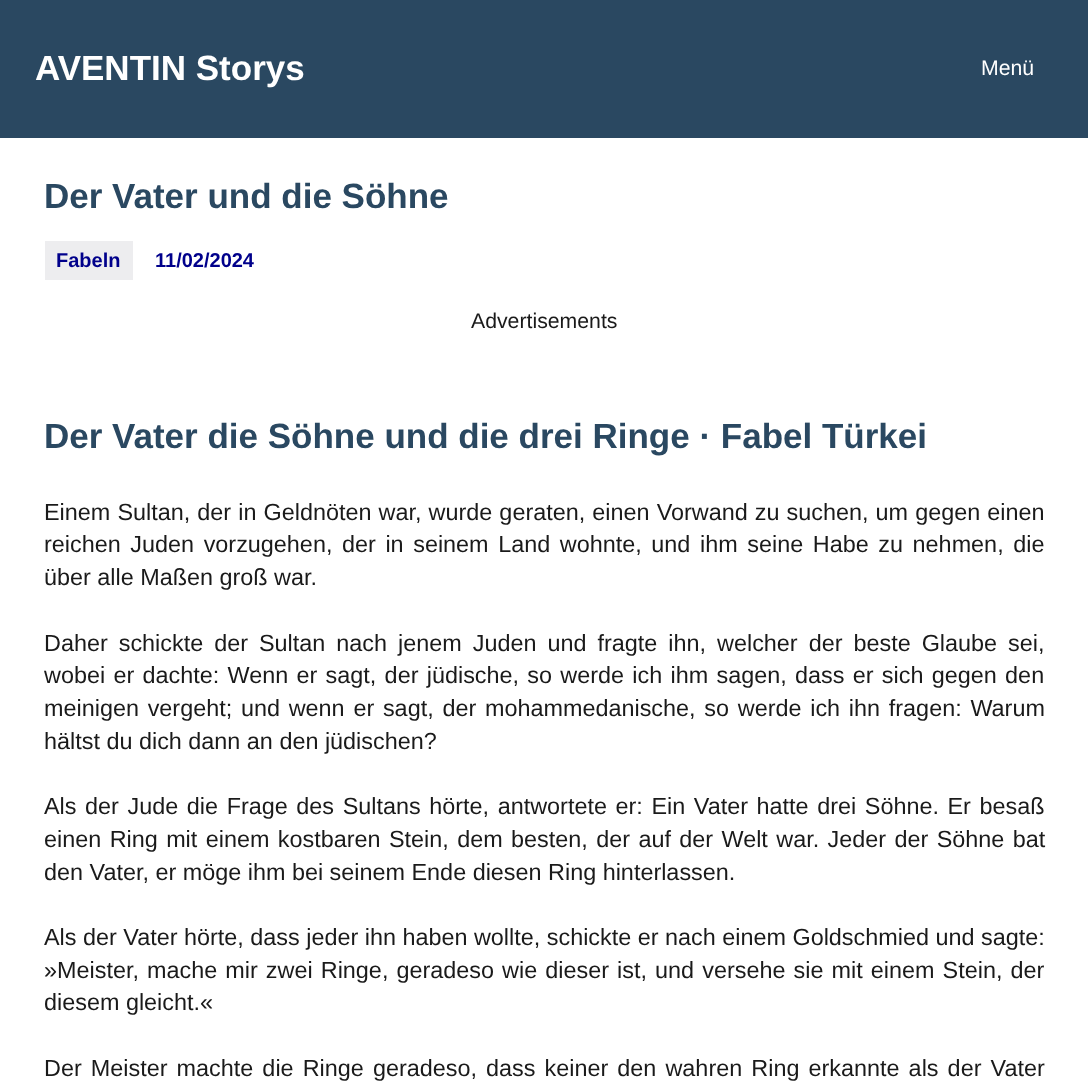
<svg xmlns="http://www.w3.org/2000/svg" width="1088" height="1092" viewBox="0 0 1088 1092">
  <rect width="100%" height="100%" fill="#2a4861"/>
  <text x="35" y="80" font-family="Liberation Sans" font-size="35" font-weight="bold" fill="#ffffff">AVENTIN Storys</text>
  <text x="981" y="75" font-family="Liberation Sans" font-size="21.25" fill="#ffffff">Menü</text>
  <rect x="0" y="138" width="1088" height="954" fill="#ffffff"/>
  <text x="44" y="208" font-family="Liberation Sans" font-size="35" font-weight="bold" fill="#2a4861">Der Vater und die Söhne</text>
  <rect x="45" y="241" width="88" height="39" fill="#ededef"/>
  <text x="56" y="267" font-family="Liberation Sans" font-size="20" font-weight="bold" fill="#00008b">Fabeln</text>
  <text x="155" y="267" font-family="Liberation Sans" font-size="20" font-weight="bold" fill="#00008b">11/02/2024</text>
  <text x="471" y="328" font-family="Liberation Sans" font-size="21.25" fill="#1a1a1a">Advertisements</text>
  <text x="44" y="448" font-family="Liberation Sans" font-size="35" font-weight="bold" fill="#2a4861">Der Vater die Söhne und die drei Ringe · Fabel Türkei</text>
  <text x="44" y="520" word-spacing="0.6" font-family="Liberation Sans" font-size="23.4" fill="#1a1a1a">Einem Sultan, der in Geldnöten war, wurde geraten, einen Vorwand zu suchen, um gegen einen</text>
  <text x="44" y="552" word-spacing="3.1" font-family="Liberation Sans" font-size="23.4" fill="#1a1a1a">reichen Juden vorzugehen, der in seinem Land wohnte, und ihm seine Habe zu nehmen, die</text>
  <text x="44" y="585" font-family="Liberation Sans" font-size="23.4" fill="#1a1a1a">über alle Maßen groß war.</text>
  <text x="44" y="651" word-spacing="4.5" font-family="Liberation Sans" font-size="23.4" fill="#1a1a1a">Daher schickte der Sultan nach jenem Juden und fragte ihn, welcher der beste Glaube sei,</text>
  <text x="44" y="683" word-spacing="1.8" font-family="Liberation Sans" font-size="23.4" fill="#1a1a1a">wobei er dachte: Wenn er sagt, der jüdische, so werde ich ihm sagen, dass er sich gegen den</text>
  <text x="44" y="716" word-spacing="2.25" font-family="Liberation Sans" font-size="23.4" fill="#1a1a1a">meinigen vergeht; und wenn er sagt, der mohammedanische, so werde ich ihn fragen: Warum</text>
  <text x="44" y="749" font-family="Liberation Sans" font-size="23.4" fill="#1a1a1a">hältst du dich dann an den jüdischen?</text>
  <text x="44" y="814" word-spacing="2.1" font-family="Liberation Sans" font-size="23.4" fill="#1a1a1a">Als der Jude die Frage des Sultans hörte, antwortete er: Ein Vater hatte drei Söhne. Er besaß</text>
  <text x="44" y="847" word-spacing="1.9" font-family="Liberation Sans" font-size="23.4" fill="#1a1a1a">einen Ring mit einem kostbaren Stein, dem besten, der auf der Welt war. Jeder der Söhne bat</text>
  <text x="44" y="880" font-family="Liberation Sans" font-size="23.4" fill="#1a1a1a">den Vater, er möge ihm bei seinem Ende diesen Ring hinterlassen.</text>
  <text x="44" y="945" font-family="Liberation Sans" font-size="23.4" fill="#1a1a1a">Als der Vater hörte, dass jeder ihn haben wollte, schickte er nach einem Goldschmied und sagte:</text>
  <text x="44" y="978" word-spacing="1.6" font-family="Liberation Sans" font-size="23.4" fill="#1a1a1a">»Meister, mache mir zwei Ringe, geradeso wie dieser ist, und versehe sie mit einem Stein, der</text>
  <text x="44" y="1010" font-family="Liberation Sans" font-size="23.4" fill="#1a1a1a">diesem gleicht.«</text>
  <text x="44" y="1076" word-spacing="2.6" font-family="Liberation Sans" font-size="23.4" fill="#1a1a1a">Der Meister machte die Ringe geradeso, dass keiner den wahren Ring erkannte als der Vater</text>
</svg>
